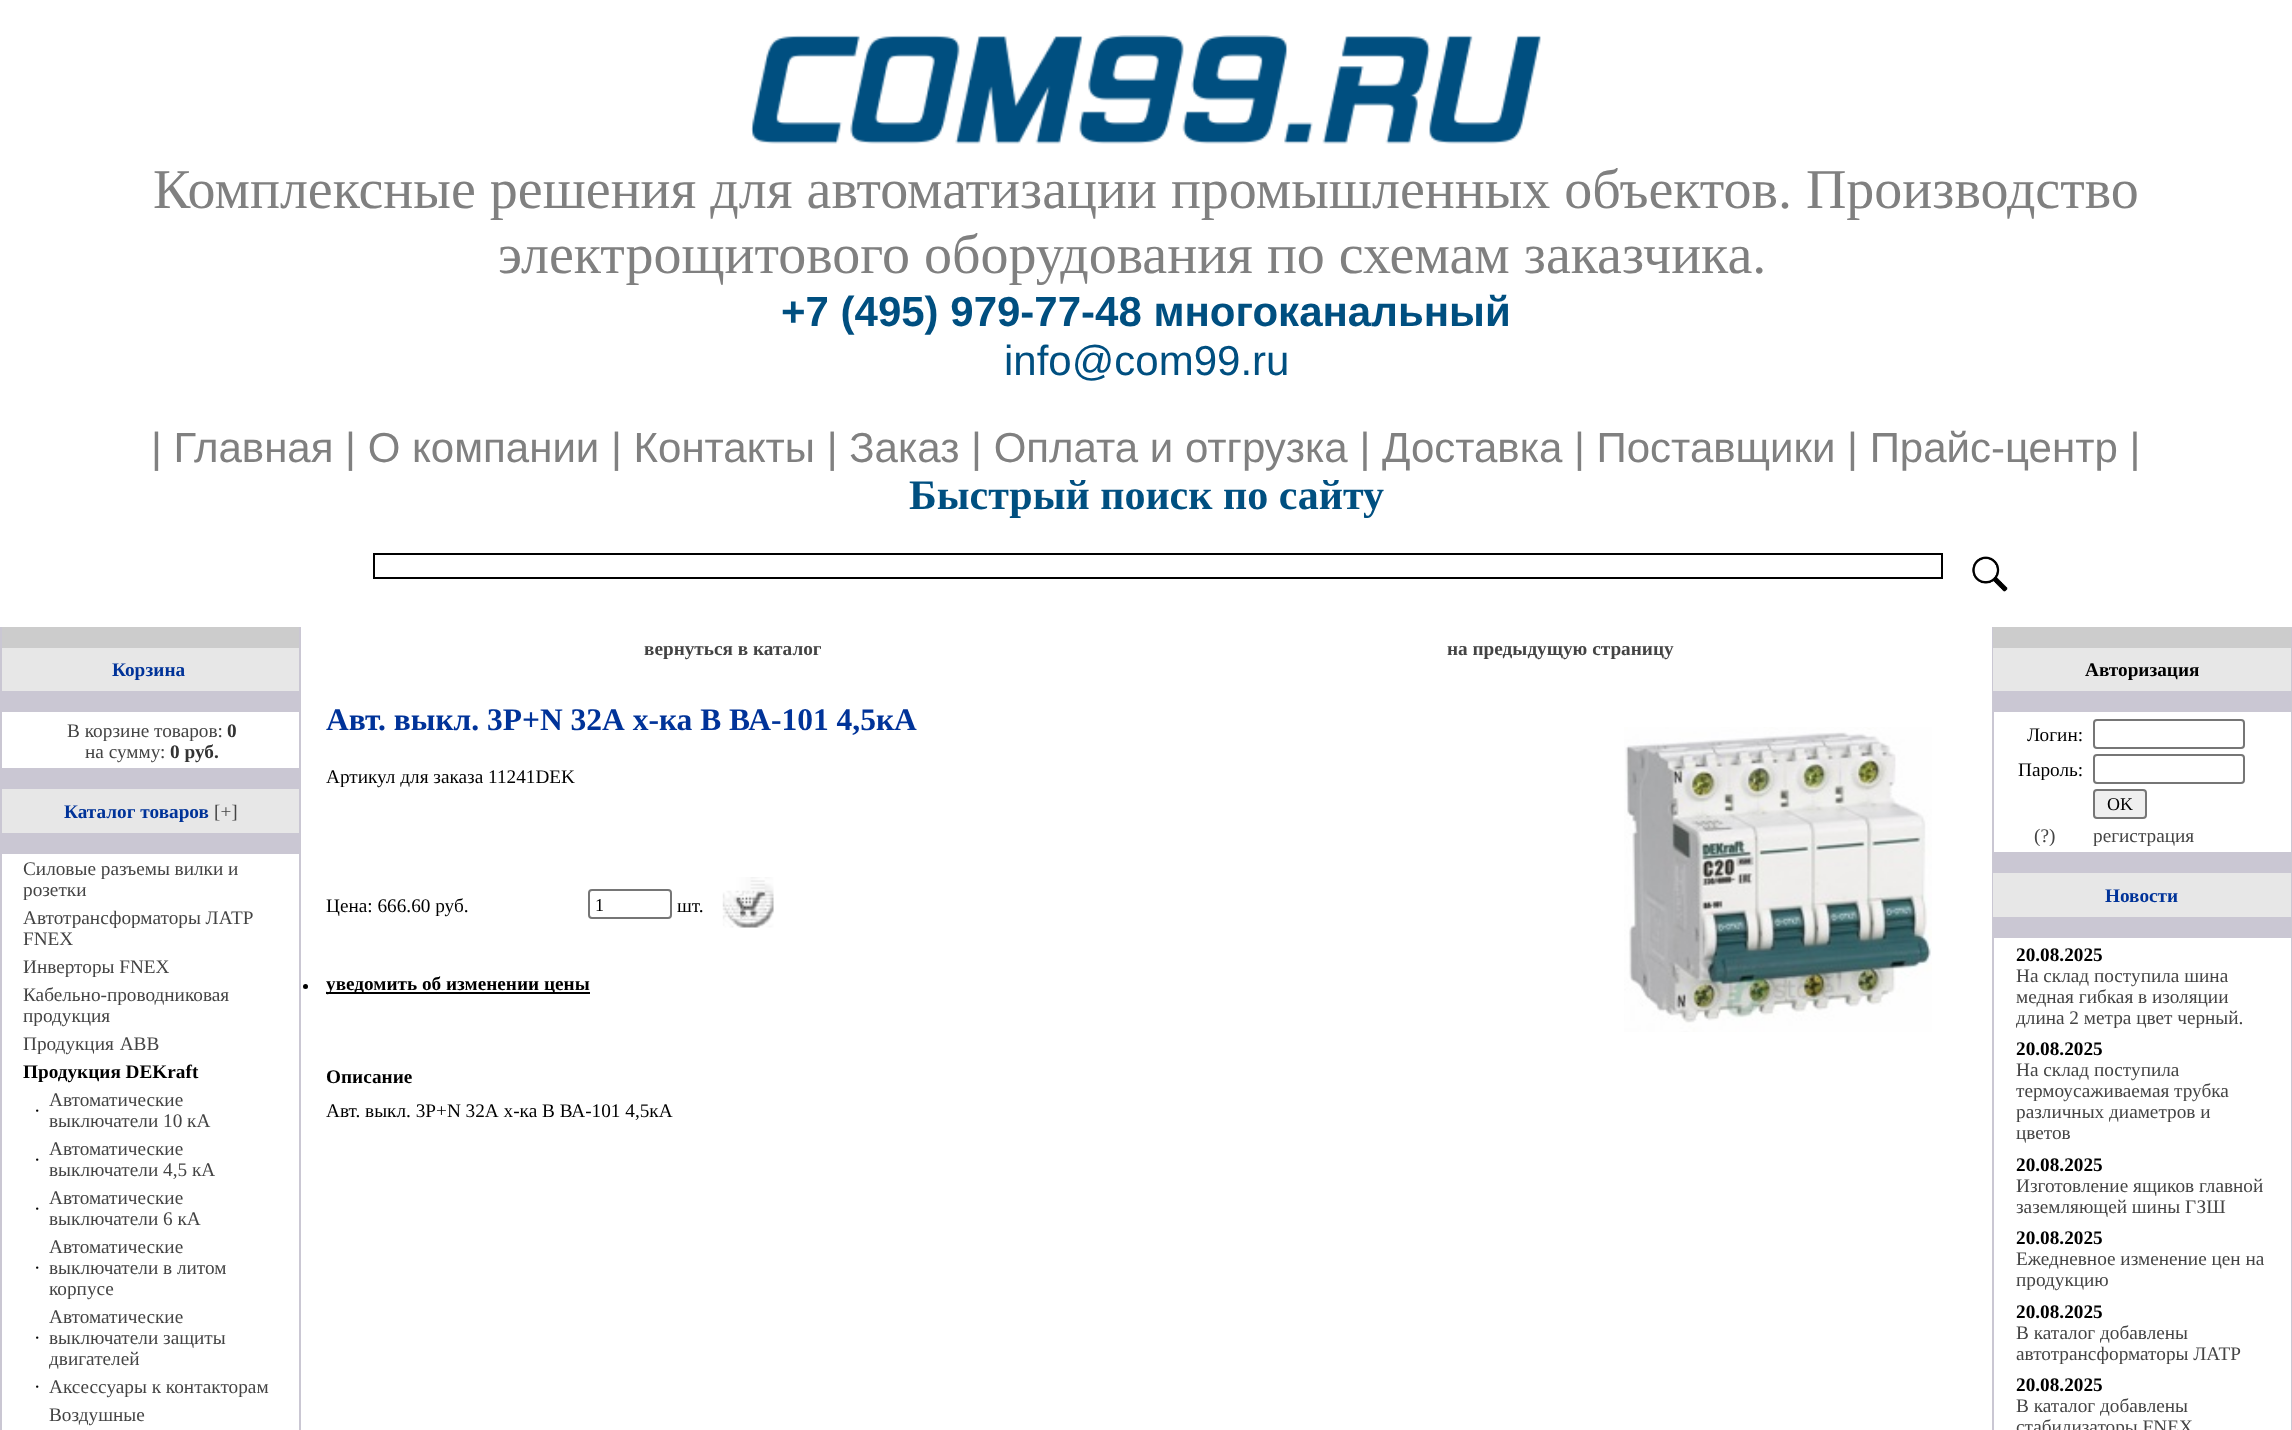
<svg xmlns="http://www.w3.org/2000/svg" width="2292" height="1430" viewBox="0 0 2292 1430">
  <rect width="100%" height="100%" fill="#ffffff"/>
  <image x="751" y="35" width="790" height="109" href="img1.png"/>
  <text x="153" y="208" font-family="Liberation Serif" font-size="56" fill="#808080">Комплексные решения для автоматизации промышленных объектов. Производство</text>
  <text x="498" y="273" font-family="Liberation Serif" font-size="56" fill="#808080">электрощитового оборудования по схемам заказчика.</text>
  <text x="781" y="326" font-family="Liberation Sans" font-size="42" font-weight="bold" fill="#004f80">+7 (495) 979-77-48 многоканальный</text>
  <text x="1004" y="375" font-family="Liberation Sans" font-size="42" fill="#004f80">info@com99.ru</text>
  <text x="151" y="462" font-family="Liberation Sans" font-size="42" fill="#808080">| Главная | О компании | Контакты | Заказ | Оплата и отгрузка | Доставка | Поставщики | Прайс-центр |</text>
  <text x="909" y="509" font-family="Liberation Serif" font-size="42" font-weight="bold" fill="#004f80">Быстрый поиск по сайту</text>
  <rect x="374" y="554" width="1568" height="24" fill="none" stroke="#000000" stroke-width="2"/>
  <image x="1972" y="556" width="36" height="36" href="img2.png"/>
  <rect x="0" y="627" width="2" height="803" fill="#cac7d3"/>
  <rect x="2" y="627" width="297" height="21" fill="#cccccc"/>
  <rect x="2" y="648" width="297" height="43" fill="#e7e7e7"/>
  <text x="112" y="676" font-family="Liberation Serif" font-size="19.25" font-weight="bold" fill="#003399">Корзина</text>
  <rect x="2" y="691" width="297" height="21" fill="#cac7d3"/>
  <text x="67" y="737" font-family="Liberation Serif" font-size="19.25" fill="#444444">В корзине товаров:</text>
  <text x="227" y="737" font-family="Liberation Serif" font-size="19.25" font-weight="bold" fill="#333333">0</text>
  <text x="85" y="758" font-family="Liberation Serif" font-size="19.25" fill="#444444">на сумму:</text>
  <text x="170" y="758" font-family="Liberation Serif" font-size="19.25" font-weight="bold" fill="#333333">0 руб.</text>
  <rect x="2" y="768" width="297" height="21" fill="#cac7d3"/>
  <rect x="2" y="789" width="297" height="44" fill="#e7e7e7"/>
  <text x="64" y="818" font-family="Liberation Serif" font-size="19.25" font-weight="bold" fill="#003399">Каталог товаров</text>
  <text x="214" y="818" font-family="Liberation Serif" font-size="19.25" fill="#444444">[+]</text>
  <rect x="2" y="833" width="297" height="21" fill="#cac7d3"/>
  <text x="23" y="875" font-family="Liberation Serif" font-size="19.25" fill="#444444">Силовые разъемы вилки и</text>
  <text x="23" y="896" font-family="Liberation Serif" font-size="19.25" fill="#444444">розетки</text>
  <text x="23" y="924" font-family="Liberation Serif" font-size="19.25" fill="#444444">Автотрансформаторы ЛАТР</text>
  <text x="23" y="945" font-family="Liberation Serif" font-size="19.25" fill="#444444">FNEX</text>
  <text x="23" y="973" font-family="Liberation Serif" font-size="19.25" fill="#444444">Инверторы FNEX</text>
  <text x="23" y="1001" font-family="Liberation Serif" font-size="19.25" fill="#444444">Кабельно-проводниковая</text>
  <text x="23" y="1022" font-family="Liberation Serif" font-size="19.25" fill="#444444">продукция</text>
  <text x="23" y="1050" word-spacing="1" font-family="Liberation Serif" font-size="19.25" fill="#444444">Продукция ABB</text>
  <text x="23" y="1078" font-family="Liberation Serif" font-size="19.25" font-weight="bold" fill="#000000">Продукция DEKraft</text>
  <text x="34" y="1117" font-family="Liberation Serif" font-size="19.25" fill="#000000">·</text>
  <text x="49" y="1106" font-family="Liberation Serif" font-size="19.25" fill="#444444">Автоматические</text>
  <text x="49" y="1127" font-family="Liberation Serif" font-size="19.25" fill="#444444">выключатели 10 кА</text>
  <text x="34" y="1166" font-family="Liberation Serif" font-size="19.25" fill="#000000">·</text>
  <text x="49" y="1155" font-family="Liberation Serif" font-size="19.25" fill="#444444">Автоматические</text>
  <text x="49" y="1176" font-family="Liberation Serif" font-size="19.25" fill="#444444">выключатели 4,5 кА</text>
  <text x="34" y="1215" font-family="Liberation Serif" font-size="19.25" fill="#000000">·</text>
  <text x="49" y="1204" font-family="Liberation Serif" font-size="19.25" fill="#444444">Автоматические</text>
  <text x="49" y="1225" font-family="Liberation Serif" font-size="19.25" fill="#444444">выключатели 6 кА</text>
  <text x="34" y="1274" font-family="Liberation Serif" font-size="19.25" fill="#000000">·</text>
  <text x="49" y="1253" font-family="Liberation Serif" font-size="19.25" fill="#444444">Автоматические</text>
  <text x="49" y="1274" font-family="Liberation Serif" font-size="19.25" fill="#444444">выключатели в литом</text>
  <text x="49" y="1295" font-family="Liberation Serif" font-size="19.25" fill="#444444">корпусе</text>
  <text x="34" y="1344" font-family="Liberation Serif" font-size="19.25" fill="#000000">·</text>
  <text x="49" y="1323" font-family="Liberation Serif" font-size="19.25" fill="#444444">Автоматические</text>
  <text x="49" y="1344" font-family="Liberation Serif" font-size="19.25" fill="#444444">выключатели защиты</text>
  <text x="49" y="1365" font-family="Liberation Serif" font-size="19.25" fill="#444444">двигателей</text>
  <text x="34" y="1393" font-family="Liberation Serif" font-size="19.25" fill="#000000">·</text>
  <text x="49" y="1393" font-family="Liberation Serif" font-size="19.25" fill="#444444">Аксессуары к контакторам</text>
  <text x="49" y="1421" font-family="Liberation Serif" font-size="19.25" fill="#444444">Воздушные</text>
  <rect x="299" y="627" width="2" height="803" fill="#cac7d3"/>
  <text x="644" y="655" font-family="Liberation Serif" font-size="19.25" font-weight="bold" fill="#444444">вернуться в каталог</text>
  <text x="1447" y="655" font-family="Liberation Serif" font-size="19.25" font-weight="bold" fill="#444444">на предыдущую страницу</text>
  <text x="326" y="730" font-family="Liberation Serif" font-size="31.5" font-weight="bold" fill="#003399">Авт. выкл. 3P+N 32А х-ка B ВА-101 4,5кА</text>
  <image x="1624" y="727" width="308" height="305" href="img3.png"/>
  <text x="326" y="783" font-family="Liberation Serif" font-size="19.25" fill="#000000">Артикул для заказа 11241DEK</text>
  <text x="326" y="912" font-family="Liberation Serif" font-size="19.25" fill="#000000">Цена: 666.60 руб.</text>
  <rect x="589" y="890" width="82" height="28" rx="3" fill="none" stroke="#767676" stroke-width="2"/>
  <text x="595" y="911" font-family="Liberation Serif" font-size="18" fill="#000000">1</text>
  <text x="677" y="912" font-family="Liberation Serif" font-size="19.25" fill="#000000">шт.</text>
  <image x="722" y="877" width="52" height="51" href="img4.png"/>
  <circle cx="305.5" cy="986.5" r="2.5" fill="#000000"/>
  <rect x="326" y="992" width="264" height="2" fill="#000000"/>
  <text x="326" y="990" font-family="Liberation Serif" font-size="19.25" font-weight="bold" fill="#000000">уведомить об изменении цены</text>
  <text x="326" y="1083" font-family="Liberation Serif" font-size="19.25" font-weight="bold" fill="#000000">Описание</text>
  <text x="326" y="1117" font-family="Liberation Serif" font-size="19.25" fill="#000000">Авт. выкл. 3P+N 32А х-ка B ВА-101 4,5кА</text>
  <rect x="1992" y="627" width="2" height="803" fill="#cac7d3"/>
  <rect x="1993" y="627" width="298" height="21" fill="#cccccc"/>
  <rect x="1993" y="648" width="298" height="43" fill="#e7e7e7"/>
  <text x="2085" y="676" font-family="Liberation Serif" font-size="19.25" font-weight="bold" fill="#000000">Авторизация</text>
  <rect x="1994" y="691" width="297" height="21" fill="#cac7d3"/>
  <text x="2027" y="741" font-family="Liberation Serif" font-size="19.25" fill="#000000">Логин:</text>
  <rect x="2094" y="720" width="150" height="28" rx="3" fill="none" stroke="#767676" stroke-width="2"/>
  <text x="2018" y="776" font-family="Liberation Serif" font-size="19.25" fill="#000000">Пароль:</text>
  <rect x="2094" y="755" width="150" height="28" rx="3" fill="none" stroke="#767676" stroke-width="2"/>
  <rect x="2094" y="790" width="52" height="28" rx="3" fill="#efefef" stroke="#767676" stroke-width="2"/>
  <text x="2107" y="810" font-family="Liberation Serif" font-size="18" fill="#000000">OK</text>
  <text x="2034" y="842" font-family="Liberation Serif" font-size="19.25" fill="#444444">(?)</text>
  <text x="2093" y="842" font-family="Liberation Serif" font-size="19.25" fill="#444444">регистрация</text>
  <rect x="1994" y="852" width="297" height="21" fill="#cac7d3"/>
  <rect x="1993" y="873" width="298" height="44" fill="#e7e7e7"/>
  <text x="2105" y="902" font-family="Liberation Serif" font-size="19.25" font-weight="bold" fill="#003399">Новости</text>
  <rect x="1994" y="917" width="297" height="21" fill="#cac7d3"/>
  <text x="2016" y="961" font-family="Liberation Serif" font-size="19.25" font-weight="bold" fill="#000000">20.08.2025</text>
  <text x="2016" y="982" font-family="Liberation Serif" font-size="19.25" fill="#444444">На склад поступила шина</text>
  <text x="2016" y="1003" font-family="Liberation Serif" font-size="19.25" fill="#444444">медная гибкая в изоляции</text>
  <text x="2016" y="1024" font-family="Liberation Serif" font-size="19.25" fill="#444444">длина 2 метра цвет черный.</text>
  <text x="2016" y="1055" font-family="Liberation Serif" font-size="19.25" font-weight="bold" fill="#000000">20.08.2025</text>
  <text x="2016" y="1076" font-family="Liberation Serif" font-size="19.25" fill="#444444">На склад поступила</text>
  <text x="2016" y="1097" font-family="Liberation Serif" font-size="19.25" fill="#444444">термоусаживаемая трубка</text>
  <text x="2016" y="1118" font-family="Liberation Serif" font-size="19.25" fill="#444444">различных диаметров и</text>
  <text x="2016" y="1139" font-family="Liberation Serif" font-size="19.25" fill="#444444">цветов</text>
  <text x="2016" y="1171" font-family="Liberation Serif" font-size="19.25" font-weight="bold" fill="#000000">20.08.2025</text>
  <text x="2016" y="1192" font-family="Liberation Serif" font-size="19.25" fill="#444444">Изготовление ящиков главной</text>
  <text x="2016" y="1213" font-family="Liberation Serif" font-size="19.25" fill="#444444">заземляющей шины ГЗШ</text>
  <text x="2016" y="1244" font-family="Liberation Serif" font-size="19.25" font-weight="bold" fill="#000000">20.08.2025</text>
  <text x="2016" y="1265" font-family="Liberation Serif" font-size="19.25" fill="#444444">Ежедневное изменение цен на</text>
  <text x="2016" y="1286" font-family="Liberation Serif" font-size="19.25" fill="#444444">продукцию</text>
  <text x="2016" y="1318" font-family="Liberation Serif" font-size="19.25" font-weight="bold" fill="#000000">20.08.2025</text>
  <text x="2016" y="1339" font-family="Liberation Serif" font-size="19.25" fill="#444444">В каталог добавлены</text>
  <text x="2016" y="1360" font-family="Liberation Serif" font-size="19.25" fill="#444444">автотрансформаторы ЛАТР</text>
  <text x="2016" y="1391" font-family="Liberation Serif" font-size="19.25" font-weight="bold" fill="#000000">20.08.2025</text>
  <text x="2016" y="1412" font-family="Liberation Serif" font-size="19.25" fill="#444444">В каталог добавлены</text>
  <text x="2016" y="1433" font-family="Liberation Serif" font-size="19.25" fill="#444444">стабилизаторы FNEX</text>
  <rect x="2291" y="627" width="1" height="803" fill="#cac7d3"/>
</svg>
